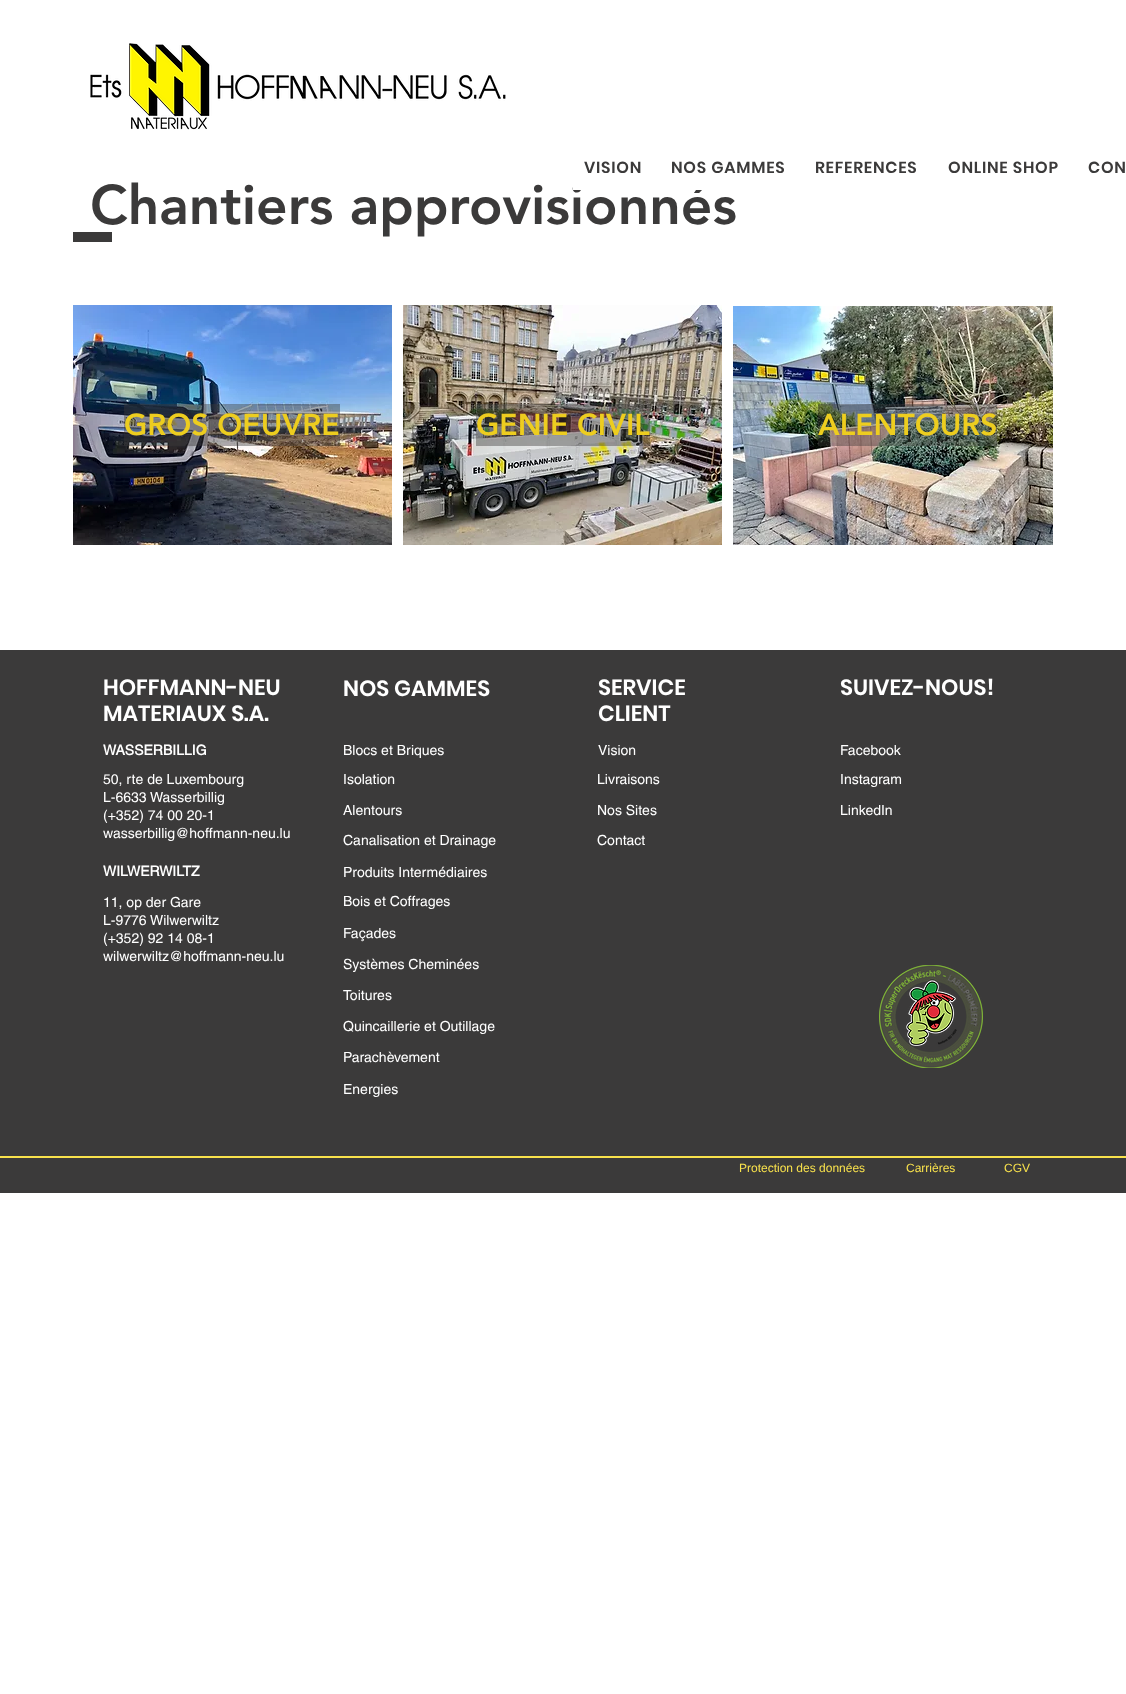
<svg xmlns="http://www.w3.org/2000/svg" width="1126" height="1694" viewBox="0 0 1126 1694">
  <rect width="100%" height="100%" fill="#ffffff"/>
  <image x="90" y="43" width="416" height="87" href="img1.png"/>
  <text x="90" y="224" font-family="'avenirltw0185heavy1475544'" font-size="55" font-weight="900" fill="#3b3a3a">Chantiers approvisionnés</text>
  <rect x="573" y="184" width="134" height="6" fill="#ffffff"/>
  <text x="584" y="173" font-family="Poppins" font-size="16" font-weight="600" letter-spacing="0.75" fill="#3b3a3a">VISION</text>
  <text x="671" y="173" font-family="Poppins" font-size="16" font-weight="600" letter-spacing="0.75" fill="#3b3a3a">NOS GAMMES</text>
  <text x="815" y="173" font-family="Poppins" font-size="16" font-weight="600" letter-spacing="0.75" fill="#3b3a3a">REFERENCES</text>
  <text x="948" y="173" font-family="Poppins" font-size="16" font-weight="600" letter-spacing="0.75" fill="#3b3a3a">ONLINE SHOP</text>
  <text x="1088" y="173" font-family="Poppins" font-size="16" font-weight="600" letter-spacing="0.75" fill="#3b3a3a">CON</text>
  <rect x="73" y="232" width="39" height="10" fill="#3b3a3a"/>
  <image x="73" y="305" width="319" height="240" href="img2.png"/>
  <image x="403" y="305" width="319" height="240" href="img3.png"/>
  <image x="733" y="306" width="320" height="239" href="img4.png"/>
  <rect x="124" y="404" width="216" height="42" fill="#3b3a3a" fill-opacity="0.42"/>
  <text x="124" y="435" font-family="'avenirltw0185heavy1475544'" font-size="30" font-weight="900" fill="#edcd1f">GROS OEUVRE</text>
  <rect x="476" y="404" width="174" height="42" fill="#3b3a3a" fill-opacity="0.42"/>
  <text x="476" y="435" font-family="'avenirltw0185heavy1475544'" font-size="30" font-weight="900" fill="#edcd1f">GENIE CIVIL</text>
  <rect x="818" y="404" width="179" height="42" fill="#3b3a3a" fill-opacity="0.42"/>
  <text x="818" y="435" font-family="'avenirltw0185heavy1475544'" font-size="30" font-weight="900" fill="#edcd1f">ALENTOURS</text>
  <rect x="0" y="650" width="1126" height="543" fill="#3b3a3a"/>
  <text x="103" y="695" font-family="Poppins" font-size="22" font-weight="600" fill="#ffffff">HOFFMANN-NEU</text>
  <text x="103" y="721" font-family="Poppins" font-size="22" font-weight="600" fill="#ffffff">MATERIAUX S.A.</text>
  <text x="103" y="755" font-family="helvetica" font-size="14" font-weight="bold" fill="#ffffff">WASSERBILLIG</text>
  <text x="103" y="784" font-family="helvetica" font-size="14" fill="#ffffff">50, rte de Luxembourg</text>
  <text x="103" y="802" font-family="helvetica" font-size="14" fill="#ffffff">L-6633 Wasserbillig</text>
  <text x="103" y="820" font-family="helvetica" font-size="14" fill="#ffffff">(+352) 74 00 20-1</text>
  <text x="103" y="838" font-family="helvetica" font-size="14" fill="#ffffff">wasserbillig@hoffmann-neu.lu</text>
  <text x="103" y="876" font-family="helvetica" font-size="14" font-weight="bold" fill="#ffffff">WILWERWILTZ</text>
  <text x="103" y="907" font-family="helvetica" font-size="14" fill="#ffffff">11, op der Gare</text>
  <text x="103" y="925" font-family="helvetica" font-size="14" fill="#ffffff">L-9776 Wilwerwiltz</text>
  <text x="103" y="943" font-family="helvetica" font-size="14" fill="#ffffff">(+352) 92 14 08-1</text>
  <text x="103" y="961" font-family="helvetica" font-size="14" fill="#ffffff">wilwerwiltz@hoffmann-neu.lu</text>
  <text x="343" y="696" font-family="Poppins" font-size="22" font-weight="600" fill="#ffffff">NOS GAMMES</text>
  <text x="343" y="755" font-family="helvetica" font-size="14" fill="#ffffff">Blocs et Briques</text>
  <text x="343" y="784" font-family="helvetica" font-size="14" fill="#ffffff">Isolation</text>
  <text x="343" y="815" font-family="helvetica" font-size="14" fill="#ffffff">Alentours</text>
  <text x="343" y="845" font-family="helvetica" font-size="14" fill="#ffffff">Canalisation et Drainage</text>
  <text x="343" y="877" font-family="helvetica" font-size="14" fill="#ffffff">Produits Intermédiaires</text>
  <text x="343" y="906" font-family="helvetica" font-size="14" fill="#ffffff">Bois et Coffrages</text>
  <text x="343" y="938" font-family="helvetica" font-size="14" fill="#ffffff">Façades</text>
  <text x="343" y="969" font-family="helvetica" font-size="14" fill="#ffffff">Systèmes Cheminées</text>
  <text x="343" y="1000" font-family="helvetica" font-size="14" fill="#ffffff">Toitures</text>
  <text x="343" y="1031" font-family="helvetica" font-size="14" fill="#ffffff">Quincaillerie et Outillage</text>
  <text x="343" y="1062" font-family="helvetica" font-size="14" fill="#ffffff">Parachèvement</text>
  <text x="343" y="1094" font-family="helvetica" font-size="14" fill="#ffffff">Energies</text>
  <text x="598" y="695" font-family="Poppins" font-size="22" font-weight="600" fill="#ffffff">SERVICE</text>
  <text x="598" y="721" font-family="Poppins" font-size="22" font-weight="600" fill="#ffffff">CLIENT</text>
  <text x="598" y="755" font-family="helvetica" font-size="14" fill="#ffffff">Vision</text>
  <text x="597" y="784" font-family="helvetica" font-size="14" fill="#ffffff">Livraisons</text>
  <text x="597" y="815" font-family="helvetica" font-size="14" fill="#ffffff">Nos Sites</text>
  <text x="597" y="845" font-family="helvetica" font-size="14" fill="#ffffff">Contact</text>
  <text x="840" y="695" font-family="Poppins" font-size="22" font-weight="600" fill="#ffffff">SUIVEZ-NOUS!</text>
  <text x="840" y="755" font-family="helvetica" font-size="14" fill="#ffffff">Facebook</text>
  <text x="840" y="784" font-family="helvetica" font-size="14" fill="#ffffff">Instagram</text>
  <text x="840" y="815" font-family="helvetica" font-size="14" fill="#ffffff">LinkedIn</text>
  <image x="879" y="965" width="104" height="103" href="img5.png"/>
  <rect x="0" y="1156" width="1126" height="2" fill="#f9e24c"/>
  <text x="739" y="1172" font-family="Liberation Sans" font-size="12" fill="#f9e24c">Protection des données</text>
  <text x="906" y="1172" font-family="Liberation Sans" font-size="12" fill="#f9e24c">Carrières</text>
  <text x="1004" y="1172" font-family="Liberation Sans" font-size="12" fill="#f9e24c">CGV</text>
</svg>
